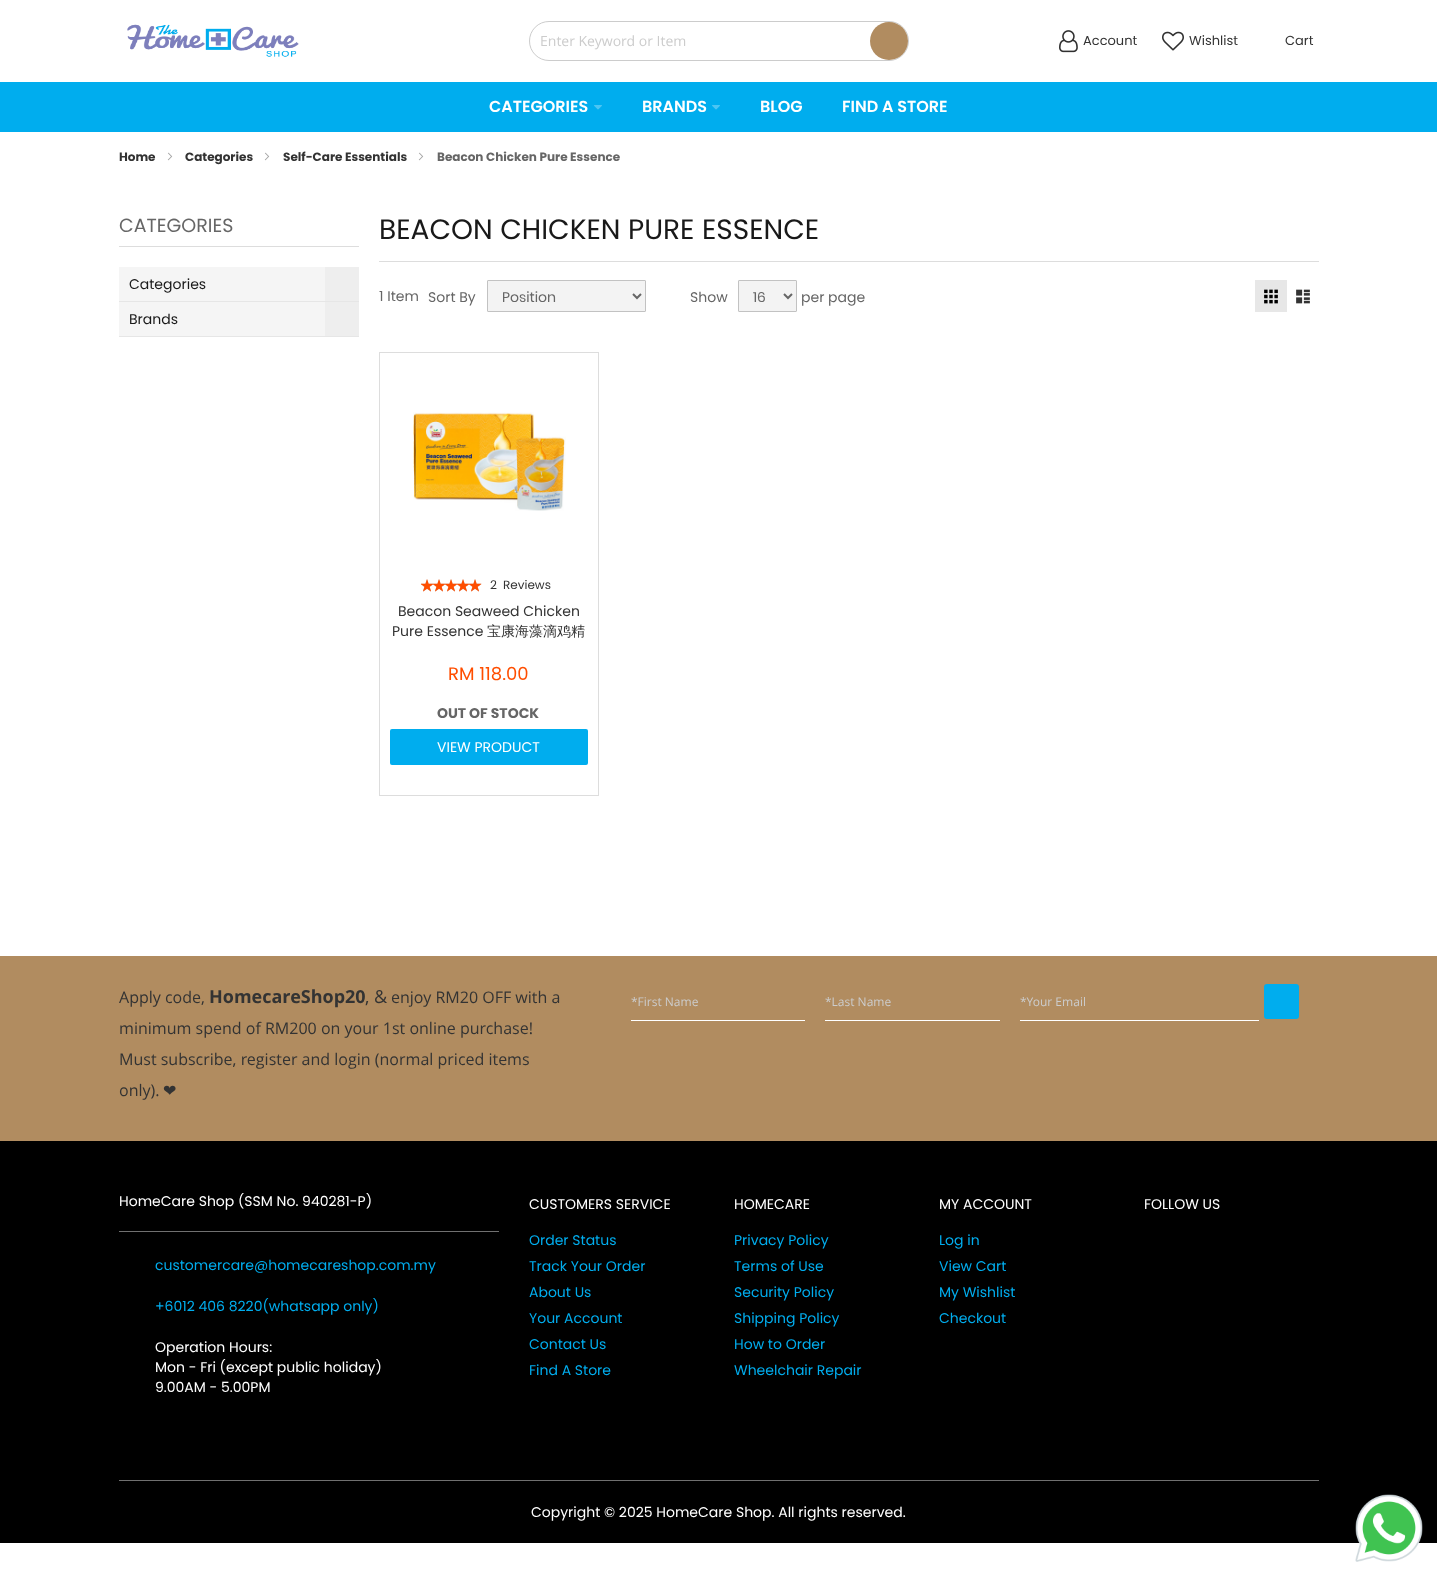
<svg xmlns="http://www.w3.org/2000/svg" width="1437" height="1581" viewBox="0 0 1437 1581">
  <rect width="100%" height="100%" fill="#ffffff"/>
  <image x="127" y="24" width="172" height="33" href="img1.png"/>
  <rect x="529.5" y="21.5" width="379" height="39" rx="19.5" fill="none" stroke="#cccccc"/>
  <text x="540" y="46" font-family="Open Sans" font-size="14" fill="#cccccc">Enter Keyword or Item</text>
  <circle cx="889" cy="41" r="19" fill="#b18c60"/>
  <image x="1059" y="30" width="19" height="23" href="img2.png"/>
  <text x="1083" y="45" font-family="Poppins" font-size="13" fill="#333333">Account</text>
  <image x="1162" y="31" width="22" height="20" href="img3.png"/>
  <text x="1189" y="45" font-family="Poppins" font-size="13" fill="#333333">Wishlist</text>
  <text x="1285" y="45" font-family="Poppins" font-size="13" fill="#333333">Cart</text>
  <rect x="0" y="82" width="1437" height="50" fill="#00adee"/>
  <text x="489" y="112" font-family="Poppins" font-size="16" font-weight="600" fill="#ffffff">CATEGORIES</text>
  <image x="594" y="105" width="8" height="5" href="img4.png"/>
  <text x="642" y="112" font-family="Poppins" font-size="16" font-weight="600" fill="#ffffff">BRANDS</text>
  <image x="712" y="105" width="8" height="5" href="img4.png"/>
  <text x="760" y="112" font-family="Poppins" font-size="16" font-weight="600" fill="#ffffff">BLOG</text>
  <text x="842" y="112" font-family="Poppins" font-size="16" font-weight="600" fill="#ffffff">FIND A STORE</text>
  <text x="119" y="161" font-family="Poppins" font-size="12" font-weight="bold" fill="#333333">Home</text>
  <image x="167" y="152" width="6" height="9" href="img5.png"/>
  <text x="185" y="161" font-family="Poppins" font-size="12" font-weight="bold" fill="#333333">Categories</text>
  <image x="264" y="152" width="6" height="9" href="img5.png"/>
  <text x="283" y="161" font-family="Poppins" font-size="12" font-weight="bold" fill="#333333">Self-Care Essentials</text>
  <image x="418" y="152" width="6" height="9" href="img5.png"/>
  <text x="437" y="161" font-family="Poppins" font-size="12" font-weight="bold" fill="#666666">Beacon Chicken Pure Essence</text>
  <rect x="119" y="246" width="240" height="1" fill="#dddddd"/>
  <text x="119" y="232" font-family="Poppins" font-size="19" fill="#666666">CATEGORIES</text>
  <rect x="119" y="267" width="206" height="34" fill="#f5f5f5"/>
  <rect x="119" y="301" width="240" height="1" fill="#e6e6e6"/>
  <text x="129" y="289" font-family="Poppins" font-size="14" fill="#191919">Categories</text>
  <rect x="325" y="267" width="34" height="34" fill="#eeeeee"/>
  <rect x="119" y="302" width="206" height="34" fill="#f5f5f5"/>
  <rect x="119" y="336" width="240" height="1" fill="#e6e6e6"/>
  <text x="129" y="324" font-family="Poppins" font-size="14" fill="#191919">Brands</text>
  <rect x="325" y="302" width="34" height="34" fill="#eeeeee"/>
  <rect x="379" y="261" width="940" height="1" fill="#dddddd"/>
  <text x="379" y="239" font-family="Poppins" font-size="28" fill="#191919">BEACON CHICKEN PURE ESSENCE</text>
  <text x="379" y="301" font-family="Poppins" font-size="14" fill="#666666">1 Item</text>
  <text x="428" y="302" font-family="Poppins" font-size="14" fill="#666666">Sort By</text>
  <rect x="487.5" y="280.5" width="158" height="31" rx="0.5" fill="#f3f3f3" stroke="#c2c2c2"/>
  <path d="M633 294L637 298L641 294" fill="none" stroke="#666666" stroke-width="2"/>
  <text x="502" y="302" font-family="'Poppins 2'" font-size="14" fill="#666666">Position</text>
  <text x="690" y="302" font-family="Poppins" font-size="14" fill="#666666">Show</text>
  <rect x="738.5" y="280.5" width="58" height="31" rx="0.5" fill="#f3f3f3" stroke="#c2c2c2"/>
  <path d="M784 294L788 298L792 294" fill="none" stroke="#666666" stroke-width="2"/>
  <text x="753" y="302" font-family="'Poppins 2'" font-size="14" fill="#666666">16</text>
  <text x="801" y="302" font-family="Poppins" font-size="14" fill="#666666">per page</text>
  <rect x="1255" y="280" width="32" height="32" fill="#e7e7e7"/>
  <image x="1264" y="289" width="14" height="15" href="img6.png"/>
  <image x="1296" y="289" width="14" height="15" href="img7.png"/>
  <rect x="379.5" y="352.5" width="219" height="443" fill="none" stroke="#dddddd"/>
  <image x="413" y="412" width="153" height="99" href="img8.png"/>
  <image x="421" y="579" width="61" height="13" href="img9.png"/>
  <image x="421" y="579" width="61" height="13" href="img10.png"/>
  <text x="490" y="589" font-family="Poppins" font-size="12" fill="#333333">2</text>
  <text x="503" y="589" font-family="Poppins" font-size="12" fill="#333333">Reviews</text>
  <text x="398" y="616" font-family="Poppins" font-size="14" fill="#333333">Beacon Seaweed Chicken</text>
  <text x="392" y="636" font-family="Poppins" font-size="14" fill="#333333">Pure Essence</text>
  <text x="487" y="636" font-family="WenQuanYi Zen Hei" font-size="14" font-weight="500" fill="#333333">宝康海藻滴鸡精</text>
  <text x="448" y="680" font-family="Poppins" font-size="18" fill="#ff4e00">RM 118.00</text>
  <text x="437" y="718" font-family="Poppins" font-size="14" font-weight="bold" fill="#666666">OUT OF STOCK</text>
  <rect x="390" y="729" width="198" height="36" rx="2" fill="#00adee"/>
  <text x="437" y="752" font-family="Poppins" font-size="14" fill="#ffffff">VIEW PRODUCT</text>
  <rect x="0" y="1141" width="1437" height="402" fill="#000000"/>
  <rect x="0" y="956" width="1437" height="185" fill="#b18c60"/>
  <text x="119" y="1003" font-family="Open Sans" font-size="16" fill="#333333">Apply code,</text>
  <text x="209" y="1003" font-family="Open Sans" font-size="18" font-weight="bold" fill="#333333">HomecareShop20</text>
  <text x="365" y="1003" font-family="Open Sans" font-size="18" fill="#333333">, &amp;</text>
  <text x="391" y="1003" font-family="Open Sans" font-size="16" fill="#333333">enjoy RM20 OFF with a</text>
  <text x="119" y="1034" font-family="Open Sans" font-size="16" fill="#333333">minimum spend of RM200 on your 1st online purchase!</text>
  <text x="119" y="1065" font-family="Open Sans" font-size="16" fill="#333333">Must subscribe, register and login (normal priced items</text>
  <text x="119" y="1096" font-family="Open Sans" font-size="16" fill="#333333">only).</text>
  <text x="163" y="1096" font-family="DejaVu Sans" font-size="16" fill="#333333">❤</text>
  <rect x="631" y="1020" width="174" height="1" fill="#ffffff"/>
  <text x="631" y="1006" font-family="Open Sans" font-size="12" fill="#cccccc">*First Name</text>
  <rect x="825" y="1020" width="175" height="1" fill="#ffffff"/>
  <text x="825" y="1006" font-family="Open Sans" font-size="12" fill="#cccccc">*Last Name</text>
  <rect x="1020" y="1020" width="239" height="1" fill="#ffffff"/>
  <text x="1020" y="1006" font-family="Open Sans" font-size="12" fill="#cccccc">*Your Email</text>
  <rect x="1264" y="984" width="35" height="35" rx="3" fill="#00adee"/>
  <rect x="119" y="1231" width="380" height="1" fill="#707070"/>
  <text x="119" y="1206" font-family="Poppins" font-size="14" fill="#ffffff">HomeCare Shop (SSM No. 940281-P)</text>
  <text x="155" y="1270" font-family="Poppins" font-size="14" fill="#00adee">customercare@homecareshop.com.my</text>
  <text x="155" y="1311" font-family="Poppins" font-size="14" fill="#00adee">+6012 406 8220(whatsapp only)</text>
  <text x="155" y="1352" font-family="Poppins" font-size="14" fill="#ffffff">Operation Hours:</text>
  <text x="155" y="1372" font-family="Poppins" font-size="14" fill="#ffffff">Mon - Fri (except public holiday)</text>
  <text x="155" y="1392" font-family="Poppins" font-size="14" fill="#ffffff">9.00AM - 5.00PM</text>
  <text x="529" y="1209" font-family="Poppins" font-size="14" fill="#ffffff">CUSTOMERS SERVICE</text>
  <text x="529" y="1245" font-family="Poppins" font-size="14" fill="#00adee">Order Status</text>
  <text x="529" y="1271" font-family="Poppins" font-size="14" fill="#00adee">Track Your Order</text>
  <text x="529" y="1297" font-family="Poppins" font-size="14" fill="#00adee">About Us</text>
  <text x="529" y="1323" font-family="Poppins" font-size="14" fill="#00adee">Your Account</text>
  <text x="529" y="1349" font-family="Poppins" font-size="14" fill="#00adee">Contact Us</text>
  <text x="529" y="1375" font-family="Poppins" font-size="14" fill="#00adee">Find A Store</text>
  <text x="734" y="1209" font-family="Poppins" font-size="14" fill="#ffffff">HOMECARE</text>
  <text x="734" y="1245" font-family="Poppins" font-size="14" fill="#00adee">Privacy Policy</text>
  <text x="734" y="1271" font-family="Poppins" font-size="14" fill="#00adee">Terms of Use</text>
  <text x="734" y="1297" font-family="Poppins" font-size="14" fill="#00adee">Security Policy</text>
  <text x="734" y="1323" font-family="Poppins" font-size="14" fill="#00adee">Shipping Policy</text>
  <text x="734" y="1349" font-family="Poppins" font-size="14" fill="#00adee">How to Order</text>
  <text x="734" y="1375" font-family="Poppins" font-size="14" fill="#00adee">Wheelchair Repair</text>
  <text x="939" y="1209" font-family="Poppins" font-size="14" fill="#ffffff">MY ACCOUNT</text>
  <text x="939" y="1245" font-family="Poppins" font-size="14" fill="#00adee">Log in</text>
  <text x="939" y="1271" font-family="Poppins" font-size="14" fill="#00adee">View Cart</text>
  <text x="939" y="1297" font-family="Poppins" font-size="14" fill="#00adee">My Wishlist</text>
  <text x="939" y="1323" font-family="Poppins" font-size="14" fill="#00adee">Checkout</text>
  <text x="1144" y="1209" font-family="Poppins" font-size="14" fill="#ffffff">FOLLOW US</text>
  <rect x="119" y="1480" width="1200" height="1" fill="#707070"/>
  <text x="531" y="1517" font-family="Poppins" font-size="14" fill="#ffffff">Copyright © 2025 HomeCare Shop. All rights reserved.</text>
  <image x="1355" y="1494" width="68" height="68" href="img11.png"/>
</svg>
